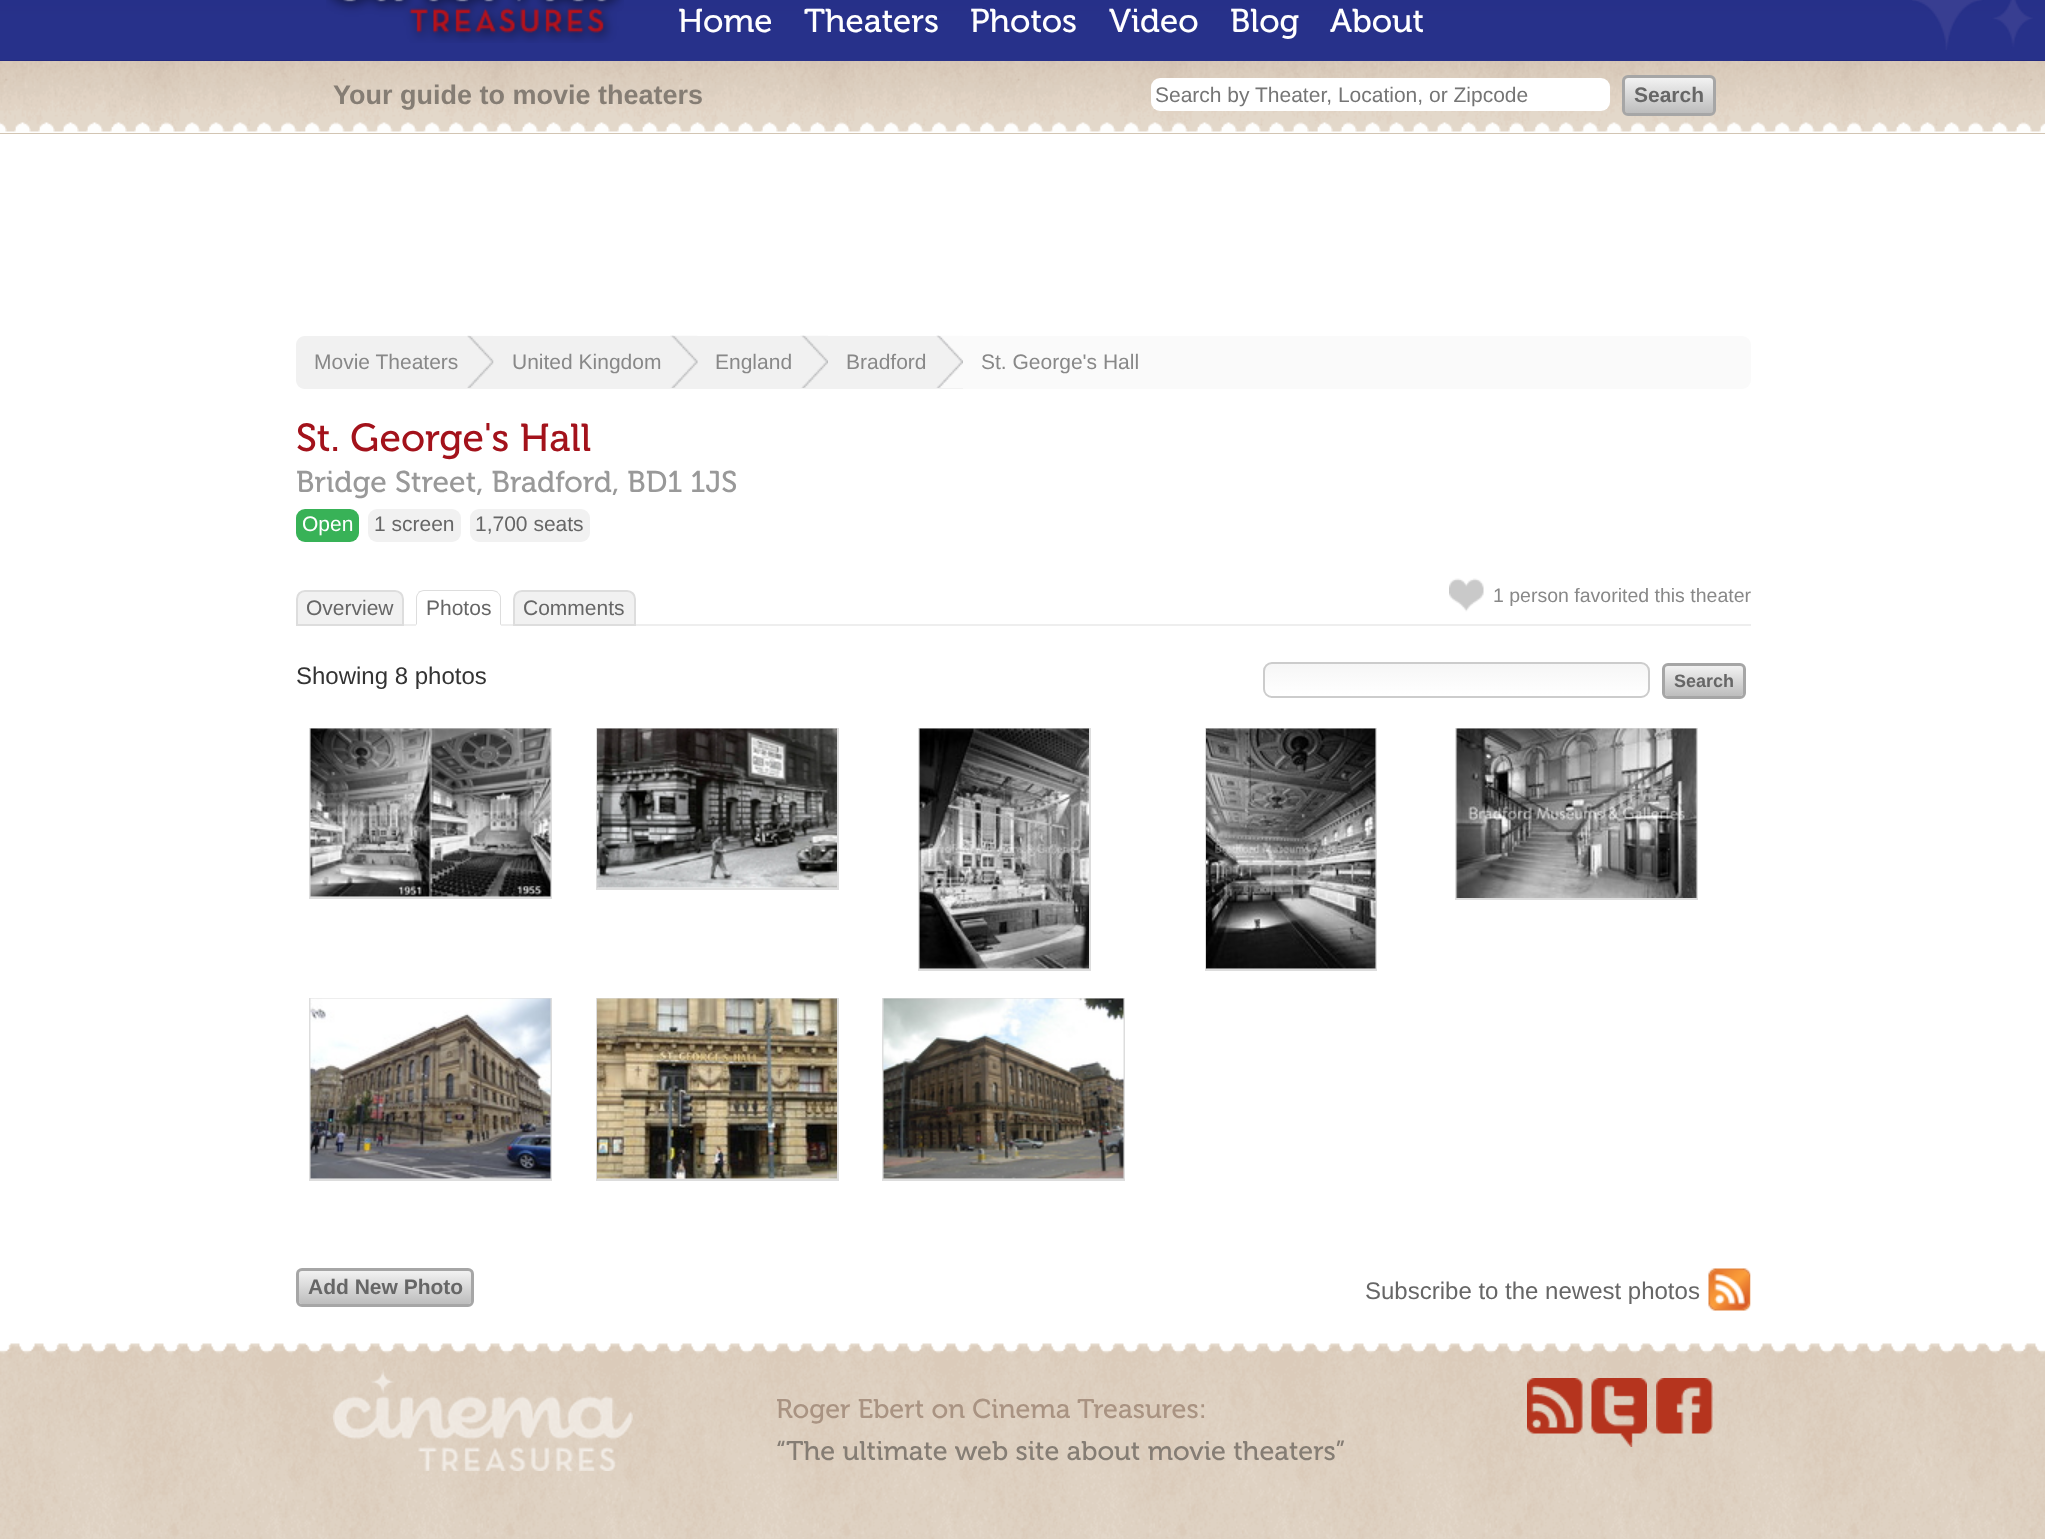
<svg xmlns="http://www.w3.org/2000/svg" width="2045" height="1539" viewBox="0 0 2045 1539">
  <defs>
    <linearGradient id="g1" gradientUnits="userSpaceOnUse" x1="1669" y1="78" x2="1669" y2="113"><stop offset="0" stop-color="#f2f2f2"/><stop offset="1" stop-color="#bdbdbd"/></linearGradient>
    <clipPath id="clip1"><rect x="1263" y="662" width="387" height="36" rx="9"/></clipPath>
    <linearGradient id="g2" gradientUnits="userSpaceOnUse" x1="1457" y1="663" x2="1457" y2="696"><stop offset="0" stop-color="#f6f6f6"/><stop offset="1" stop-color="#ffffff"/></linearGradient>
    <linearGradient id="g3" gradientUnits="userSpaceOnUse" x1="1704" y1="666" x2="1704" y2="696"><stop offset="0" stop-color="#f2f2f2"/><stop offset="1" stop-color="#bdbdbd"/></linearGradient>
    <linearGradient id="g4" gradientUnits="userSpaceOnUse" x1="385" y1="1271" x2="385" y2="1304"><stop offset="0" stop-color="#f2f2f2"/><stop offset="1" stop-color="#bdbdbd"/></linearGradient>
  </defs>
  <rect width="100%" height="100%" fill="#ffffff"/>
  <image x="0" y="0" width="2045" height="61" href="img1.png"/>
  <rect x="303" y="60" width="1440" height="1" fill="#27318a"/>
  <image x="326" y="0" width="298" height="43" href="img2.png"/>
  <text x="678" y="32" font-family="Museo" font-size="33" fill="#ffffff">Home</text>
  <text x="804" y="32" font-family="Museo" font-size="33" fill="#ffffff">Theaters</text>
  <text x="970" y="32" font-family="Museo" font-size="33" fill="#ffffff">Photos</text>
  <text x="1109" y="32" font-family="Museo" font-size="33" fill="#ffffff">Video</text>
  <text x="1230" y="32" font-family="Museo" font-size="33" fill="#ffffff">Blog</text>
  <text x="1330" y="32" font-family="Museo" font-size="33" fill="#ffffff">About</text>
  <image x="1912" y="0" width="121" height="50" href="img3.png"/>
  <rect x="0" y="133" width="2045" height="1" fill="#d2c5b3"/>
  <image x="0" y="61" width="2045" height="72" href="img4.png"/>
  <text x="333" y="104" font-family="Liberation Sans" font-size="27" font-weight="bold" fill="#857d74">Your guide to movie theaters</text>
  <rect x="1151" y="78" width="459" height="33" rx="9" fill="#ffffff"/>
  <text x="1155" y="102" font-family="Liberation Sans" font-size="21" fill="#757575">Search by Theater, Location, or Zipcode</text>
  <rect x="1625" y="78" width="88" height="35" rx="3" fill="url(#g1)"/>
  <rect x="1623.5" y="76.5" width="91" height="38" rx="4.5" fill="none" stroke="#a6a6a6" stroke-width="3"/>
  <text x="1634" y="102" font-family="Liberation Sans" font-size="21" font-weight="bold" fill="#666666">Search</text>
  <rect x="296" y="336" width="1455" height="53" rx="9" fill="#fafafa"/>
  <path d="M305 336H494V389H305C300 389 296 385 296 380V345C296 340 300 336 305 336Z" fill="#f1f1f1"/>
  <image x="467" y="335" width="27" height="53" href="img5.png"/>
  <text x="314" y="369" font-family="Liberation Sans" font-size="21" fill="#888888">Movie Theaters</text>
  <rect x="494" y="336" width="469" height="53" fill="#f1f1f1"/>
  <image x="670" y="335" width="28" height="53" href="img6.png"/>
  <text x="512" y="369" font-family="Liberation Sans" font-size="21" fill="#888888">United Kingdom</text>
  <image x="800" y="335" width="28" height="53" href="img7.png"/>
  <text x="715" y="369" font-family="Liberation Sans" font-size="21" fill="#888888">England</text>
  <image x="936" y="335" width="27" height="53" href="img8.png"/>
  <text x="846" y="369" font-family="Liberation Sans" font-size="21" fill="#888888">Bradford</text>
  <text x="981" y="369" font-family="Liberation Sans" font-size="21" fill="#888888">St. George's Hall</text>
  <text x="296" y="451" font-family="Museo" font-size="39" fill="#a3121b">St. George's Hall</text>
  <text x="296" y="492" font-family="Museo" font-size="30" fill="#999999">Bridge Street, Bradford, BD1 1JS</text>
  <rect x="296" y="509" width="63" height="33" rx="9" fill="#38b257"/>
  <text x="302" y="531" font-family="Liberation Sans" font-size="21" fill="#ffffff">Open</text>
  <rect x="368" y="509" width="93" height="33" rx="9" fill="#f1f1f1"/>
  <text x="374" y="531" font-family="Liberation Sans" font-size="21" fill="#666666">1 screen</text>
  <rect x="470" y="509" width="120" height="33" rx="9" fill="#f1f1f1"/>
  <text x="475" y="531" font-family="Liberation Sans" font-size="21" fill="#666666">1,700 seats</text>
  <rect x="404" y="624" width="1347" height="2" fill="#eeeeee"/>
  <path d="M305 591H395C399.5 591 403 594.5 403 599V625H297V599C297 594.5 300.5 591 305 591Z" fill="#f1f1f1" stroke="#dddddd" stroke-width="2"/>
  <text x="306" y="615" font-family="Liberation Sans" font-size="21" fill="#666666">Overview</text>
  <path d="M425 590H492C497 590 501 594 501 599V626H416V599C416 594 420 590 425 590Z" fill="#ffffff"/>
  <text x="426" y="615" font-family="Liberation Sans" font-size="21" fill="#666666">Photos</text>
  <path d="M424 590C422 590 420 591 418 592L419 593C420 592 422 591 424 591H492C494 591 496 592 498 593V592C497 591 494 590 492 590Z" fill="#dddddd"/>
  <path d="M498 592.5C500 594 501 596 501 598V625.5L499.5 624H500V598C500 596 499 594 497.5 593Z" fill="#dddddd"/>
  <path d="M501 626H416L417 624H500Z" fill="#ffffff"/>
  <path d="M418.5 592.5C417 594 416 596 416 598V625L417 624V598C417 596 418 594 419 593Z" fill="#dddddd"/>
  <path d="M522 591H627C631.5 591 635 594.5 635 599V625H514V599C514 594.5 517.5 591 522 591Z" fill="#f1f1f1" stroke="#dddddd" stroke-width="2"/>
  <text x="523" y="615" font-family="Liberation Sans" font-size="21" fill="#666666">Comments</text>
  <image x="1449" y="578" width="35" height="34" href="img9.png"/>
  <text x="1493" y="602" font-family="Liberation Sans" font-size="19.5" fill="#888888">1 person favorited this theater</text>
  <text x="296" y="684" font-family="Liberation Sans" font-size="24" fill="#333333">Showing 8 photos</text>
  <g clip-path="url(#clip1)">
    <rect x="1263" y="663" width="387" height="33" fill="url(#g2)"/>
  </g>
  <rect x="1264" y="663" width="385" height="34" rx="8" fill="none" stroke="#cccccc" stroke-width="2"/>
  <rect x="1665" y="666" width="78" height="30" rx="3" fill="url(#g3)"/>
  <rect x="1663.5" y="664.5" width="81" height="33" rx="4.5" fill="none" stroke="#a6a6a6" stroke-width="3"/>
  <text x="1674" y="687" font-family="Liberation Sans" font-size="18" font-weight="bold" fill="#666666">Search</text>
  <rect x="311" y="896" width="239" height="1" fill="#eeeeee"/>
  <rect x="310" y="729" width="241" height="169" fill="none" stroke="#dddddd" stroke-width="2"/>
  <image x="310" y="728" width="241" height="169" href="img10.png"/>
  <rect x="598" y="887" width="239" height="1" fill="#eeeeee"/>
  <rect x="597" y="729" width="241" height="160" fill="none" stroke="#dddddd" stroke-width="2"/>
  <image x="597" y="728" width="240" height="160" href="img11.png"/>
  <rect x="920" y="968" width="169" height="1" fill="#eeeeee"/>
  <rect x="919" y="729" width="171" height="241" fill="none" stroke="#dddddd" stroke-width="2"/>
  <image x="919" y="728" width="170" height="241" href="img12.png"/>
  <rect x="1207" y="968" width="168" height="1" fill="#eeeeee"/>
  <rect x="1206" y="729" width="170" height="241" fill="none" stroke="#dddddd" stroke-width="2"/>
  <image x="1206" y="728" width="170" height="241" href="img13.png"/>
  <rect x="1456" y="729" width="241" height="170" fill="none" stroke="#dddddd" stroke-width="2"/>
  <image x="1456" y="728" width="241" height="170" href="img14.png"/>
  <rect x="311" y="1178" width="239" height="1" fill="#eeeeee"/>
  <rect x="310" y="999" width="241" height="181" fill="none" stroke="#dddddd" stroke-width="2"/>
  <image x="310" y="998" width="241" height="181" href="img15.png"/>
  <rect x="598" y="1178" width="239" height="1" fill="#eeeeee"/>
  <rect x="597" y="999" width="241" height="181" fill="none" stroke="#dddddd" stroke-width="2"/>
  <image x="597" y="998" width="240" height="181" href="img16.png"/>
  <rect x="884" y="1178" width="239" height="1" fill="#eeeeee"/>
  <rect x="883" y="999" width="241" height="181" fill="none" stroke="#dddddd" stroke-width="2"/>
  <image x="883" y="998" width="241" height="181" href="img17.png"/>
  <rect x="299" y="1271" width="172" height="33" rx="3" fill="url(#g4)"/>
  <rect x="297.5" y="1269.5" width="175" height="36" rx="4.5" fill="none" stroke="#a6a6a6" stroke-width="3"/>
  <text x="308" y="1294" font-family="Liberation Sans" font-size="21" font-weight="bold" fill="#666666">Add New Photo</text>
  <text x="1365" y="1299" font-family="Liberation Sans" font-size="24" fill="#666666">Subscribe to the newest photos</text>
  <image x="1708" y="1268" width="43" height="43" href="img18.png"/>
  <image x="0" y="1343" width="2045" height="196" href="img19.png"/>
  <image x="333" y="1369" width="300" height="102" href="img20.png"/>
  <text x="776" y="1418" font-family="Museo" font-size="27" fill="#a99382">Roger Ebert on Cinema Treasures:</text>
  <text x="776" y="1460" font-family="Museo" font-size="27" fill="#857d74">“The ultimate web site about movie theaters”</text>
  <image x="1527" y="1378" width="56" height="56" href="img21.png"/>
  <image x="1591" y="1378" width="56" height="69" href="img22.png"/>
  <image x="1656" y="1378" width="57" height="56" href="img23.png"/>
</svg>
